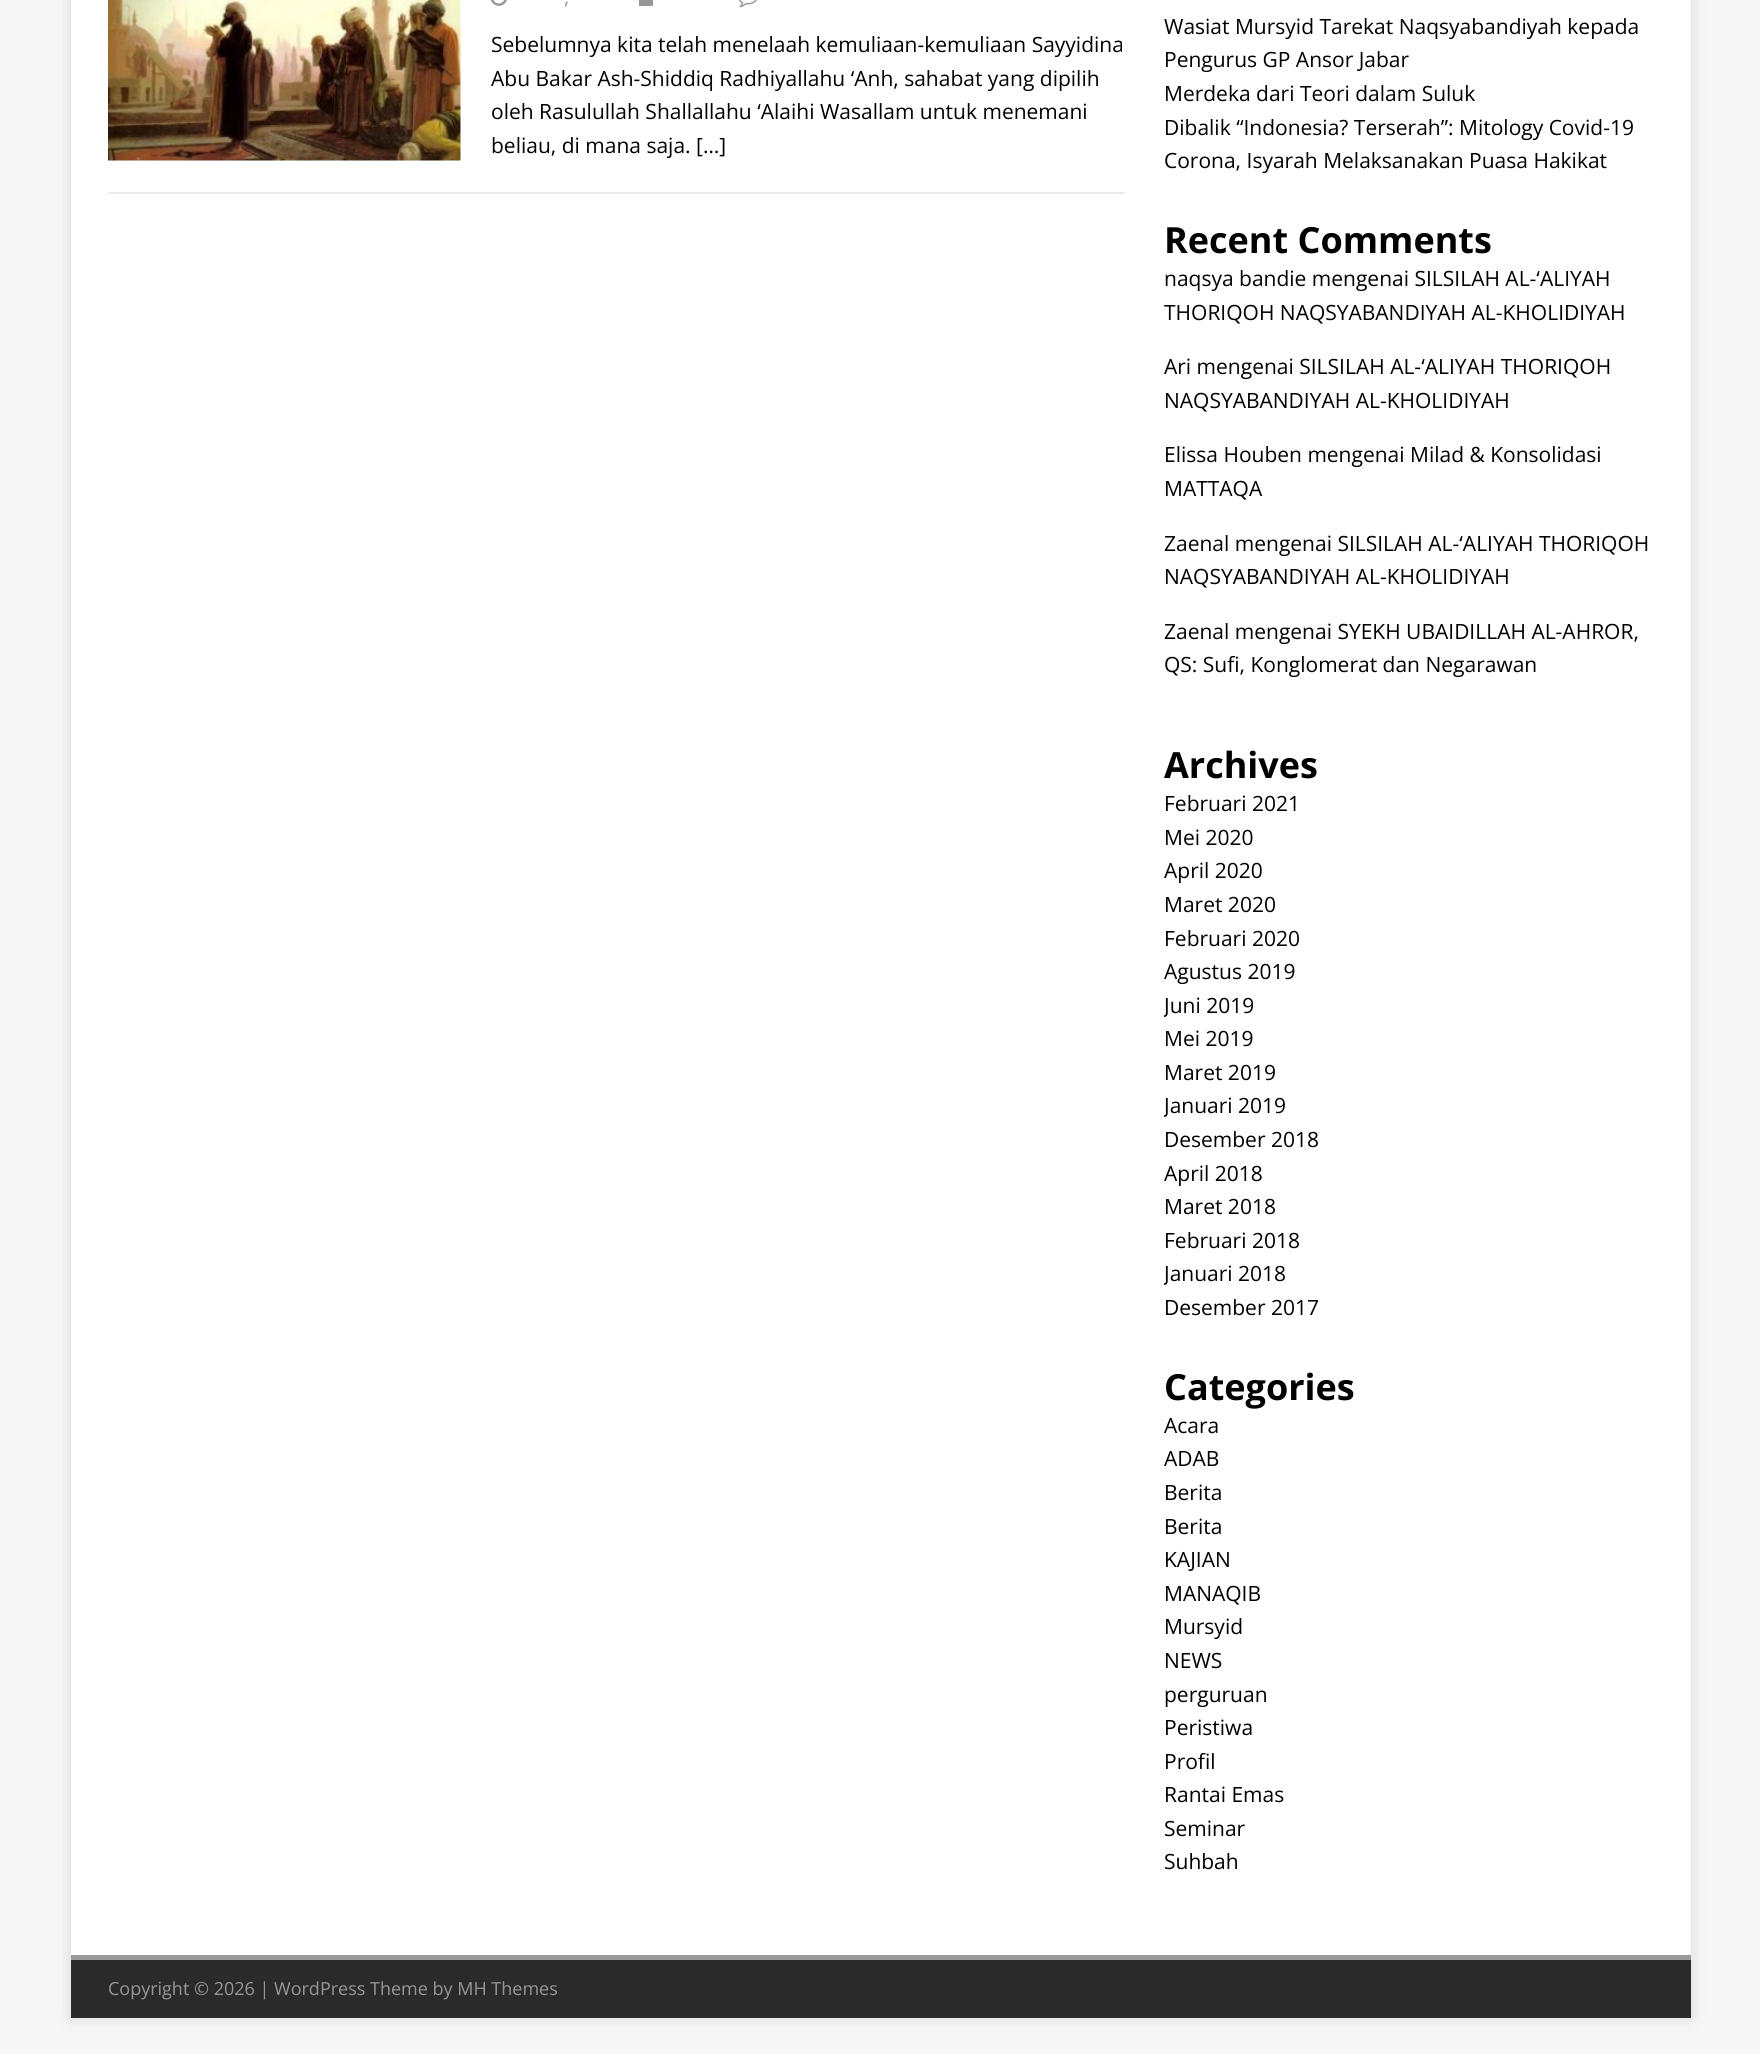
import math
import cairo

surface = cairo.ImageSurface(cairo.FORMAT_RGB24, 1760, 2054)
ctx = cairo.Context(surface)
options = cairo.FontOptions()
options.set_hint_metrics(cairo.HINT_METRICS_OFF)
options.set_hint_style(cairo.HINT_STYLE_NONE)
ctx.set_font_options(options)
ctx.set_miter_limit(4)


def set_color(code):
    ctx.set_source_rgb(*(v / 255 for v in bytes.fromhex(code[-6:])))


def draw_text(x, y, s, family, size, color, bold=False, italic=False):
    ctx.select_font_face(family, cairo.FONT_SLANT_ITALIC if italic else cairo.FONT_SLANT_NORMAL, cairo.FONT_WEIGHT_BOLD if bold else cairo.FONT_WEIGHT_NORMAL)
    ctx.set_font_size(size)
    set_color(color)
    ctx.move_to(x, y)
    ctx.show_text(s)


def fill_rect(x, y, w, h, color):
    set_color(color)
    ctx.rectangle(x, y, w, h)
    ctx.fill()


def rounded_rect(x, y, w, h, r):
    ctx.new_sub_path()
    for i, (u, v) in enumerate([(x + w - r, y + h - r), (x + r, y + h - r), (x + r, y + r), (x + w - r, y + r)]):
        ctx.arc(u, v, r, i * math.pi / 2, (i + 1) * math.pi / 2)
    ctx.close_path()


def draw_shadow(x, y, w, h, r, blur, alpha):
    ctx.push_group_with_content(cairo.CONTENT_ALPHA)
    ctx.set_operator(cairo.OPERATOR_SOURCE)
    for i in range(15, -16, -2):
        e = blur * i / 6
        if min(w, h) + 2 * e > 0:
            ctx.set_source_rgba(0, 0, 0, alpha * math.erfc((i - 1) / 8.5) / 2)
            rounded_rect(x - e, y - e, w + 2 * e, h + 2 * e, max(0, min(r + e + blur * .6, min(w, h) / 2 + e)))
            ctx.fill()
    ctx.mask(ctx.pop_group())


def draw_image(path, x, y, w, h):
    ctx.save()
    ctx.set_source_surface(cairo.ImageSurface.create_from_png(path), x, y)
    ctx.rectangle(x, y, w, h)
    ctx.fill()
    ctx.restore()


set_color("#f7f7f7")
ctx.paint()
set_color("#323232")
draw_shadow(71, -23, 1620, 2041, 0, 7.5, 0.17)
fill_rect(71, 0, 1620, 1955, "#ffffff")
fill_rect(108, 192, 1017, 2, "#ebebeb")
draw_image("assets/img1.png", 108, 0, 353, 161)
draw_image("assets/img2.png", 491, 0, 16, 6)
draw_text(564, 4, ",", "Open Sans", 20, "#979797")
fill_rect(639, 0, 14, 6, "#979797")
draw_image("assets/img3.png", 738, 0, 19, 8)
draw_text(491, 52, "Sebelumnya kita telah menelaah kemuliaan-kemuliaan Sayyidina", "Open Sans", 21, "#000000")
draw_text(491, 86, "Abu Bakar Ash-Shiddiq Radhiyallahu ‘Anh, sahabat yang dipilih", "Open Sans", 21, "#000000")
draw_text(491, 119, "oleh Rasulullah Shallallahu ‘Alaihi Wasallam untuk menemani", "Open Sans", 21, "#000000")
draw_text(491, 153, "beliau, di mana saja. […]", "Open Sans", 21, "#000000")
draw_text(1164, 34, "Wasiat Mursyid Tarekat Naqsyabandiyah kepada", "Open Sans", 21, "#000000")
draw_text(1164, 67, "Pengurus GP Ansor Jabar", "Open Sans", 21, "#000000")
draw_text(1164, 101, "Merdeka dari Teori dalam Suluk", "Open Sans", 21, "#000000")
draw_text(1164, 135, "Dibalik “Indonesia? Terserah”: Mitology Covid-19", "Open Sans", 21, "#000000")
draw_text(1164, 168, "Corona, Isyarah Melaksanakan Puasa Hakikat", "Open Sans", 21, "#000000")
draw_text(1164, 253, "Recent Comments", "Open Sans", 36, "#000000", bold=True)
draw_text(1164, 286, "naqsya bandie mengenai SILSILAH AL-‘ALIYAH", "Open Sans", 21, "#000000")
draw_text(1164, 320, "THORIQOH NAQSYABANDIYAH AL-KHOLIDIYAH", "Open Sans", 21, "#000000")
draw_text(1164, 374, "Ari mengenai SILSILAH AL-‘ALIYAH THORIQOH", "Open Sans", 21, "#000000")
draw_text(1164, 408, "NAQSYABANDIYAH AL-KHOLIDIYAH", "Open Sans", 21, "#000000")
draw_text(1164, 462, "Elissa Houben mengenai Milad & Konsolidasi", "Open Sans", 21, "#000000")
draw_text(1164, 496, "MATTAQA", "Open Sans", 21, "#000000")
draw_text(1164, 551, "Zaenal mengenai SILSILAH AL-‘ALIYAH THORIQOH", "Open Sans", 21, "#000000")
draw_text(1164, 584, "NAQSYABANDIYAH AL-KHOLIDIYAH", "Open Sans", 21, "#000000")
draw_text(1164, 639, "Zaenal mengenai SYEKH UBAIDILLAH AL-AHROR,", "Open Sans", 21, "#000000")
draw_text(1164, 672, "QS: Sufi, Konglomerat dan Negarawan", "Open Sans", 21, "#000000")
draw_text(1164, 778, "Archives", "Open Sans", 36, "#000000", bold=True)
draw_text(1164, 811, "Februari 2021", "Open Sans", 21, "#000000")
draw_text(1164, 845, "Mei 2020", "Open Sans", 21, "#000000")
draw_text(1164, 878, "April 2020", "Open Sans", 21, "#000000")
draw_text(1164, 912, "Maret 2020", "Open Sans", 21, "#000000")
draw_text(1164, 946, "Februari 2020", "Open Sans", 21, "#000000")
draw_text(1164, 979, "Agustus 2019", "Open Sans", 21, "#000000")
ctx.save()
ctx.rectangle(1164, 741, 489, 584)
ctx.clip()
draw_text(1164, 1013, "Juni 2019", "Open Sans", 21, "#000000")
ctx.restore()
draw_text(1164, 1046, "Mei 2019", "Open Sans", 21, "#000000")
draw_text(1164, 1080, "Maret 2019", "Open Sans", 21, "#000000")
ctx.save()
ctx.rectangle(1164, 741, 489, 584)
ctx.clip()
draw_text(1164, 1113, "Januari 2019", "Open Sans", 21, "#000000")
ctx.restore()
draw_text(1164, 1147, "Desember 2018", "Open Sans", 21, "#000000")
draw_text(1164, 1181, "April 2018", "Open Sans", 21, "#000000")
draw_text(1164, 1214, "Maret 2018", "Open Sans", 21, "#000000")
draw_text(1164, 1248, "Februari 2018", "Open Sans", 21, "#000000")
ctx.save()
ctx.rectangle(1164, 741, 489, 584)
ctx.clip()
draw_text(1164, 1281, "Januari 2018", "Open Sans", 21, "#000000")
ctx.restore()
draw_text(1164, 1315, "Desember 2017", "Open Sans", 21, "#000000")
draw_text(1164, 1400, "Categories", "Open Sans", 36, "#000000", bold=True)
draw_text(1164, 1433, "Acara", "Open Sans", 21, "#000000")
draw_text(1164, 1466, "ADAB", "Open Sans", 21, "#000000")
draw_text(1164, 1500, "Berita", "Open Sans", 21, "#000000")
draw_text(1164, 1534, "Berita", "Open Sans", 21, "#000000")
draw_text(1164, 1567, "KAJIAN", "Open Sans", 21, "#000000")
draw_text(1164, 1601, "MANAQIB", "Open Sans", 21, "#000000")
draw_text(1164, 1634, "Mursyid", "Open Sans", 21, "#000000")
draw_text(1164, 1668, "NEWS", "Open Sans", 21, "#000000")
draw_text(1164, 1702, "perguruan", "Open Sans", 21, "#000000")
draw_text(1164, 1735, "Peristiwa", "Open Sans", 21, "#000000")
draw_text(1164, 1769, "Profil", "Open Sans", 21, "#000000")
draw_text(1164, 1802, "Rantai Emas", "Open Sans", 21, "#000000")
draw_text(1164, 1836, "Seminar", "Open Sans", 21, "#000000")
draw_text(1164, 1869, "Suhbah", "Open Sans", 21, "#000000")
fill_rect(71, 1960, 1620, 58, "#2a2a2a")
fill_rect(71, 1955, 1620, 5, "#999999")
draw_text(108, 1995, "Copyright © 2026 | WordPress Theme by MH Themes", "Open Sans", 18, "#979797")
surface.write_to_png("output.png")
